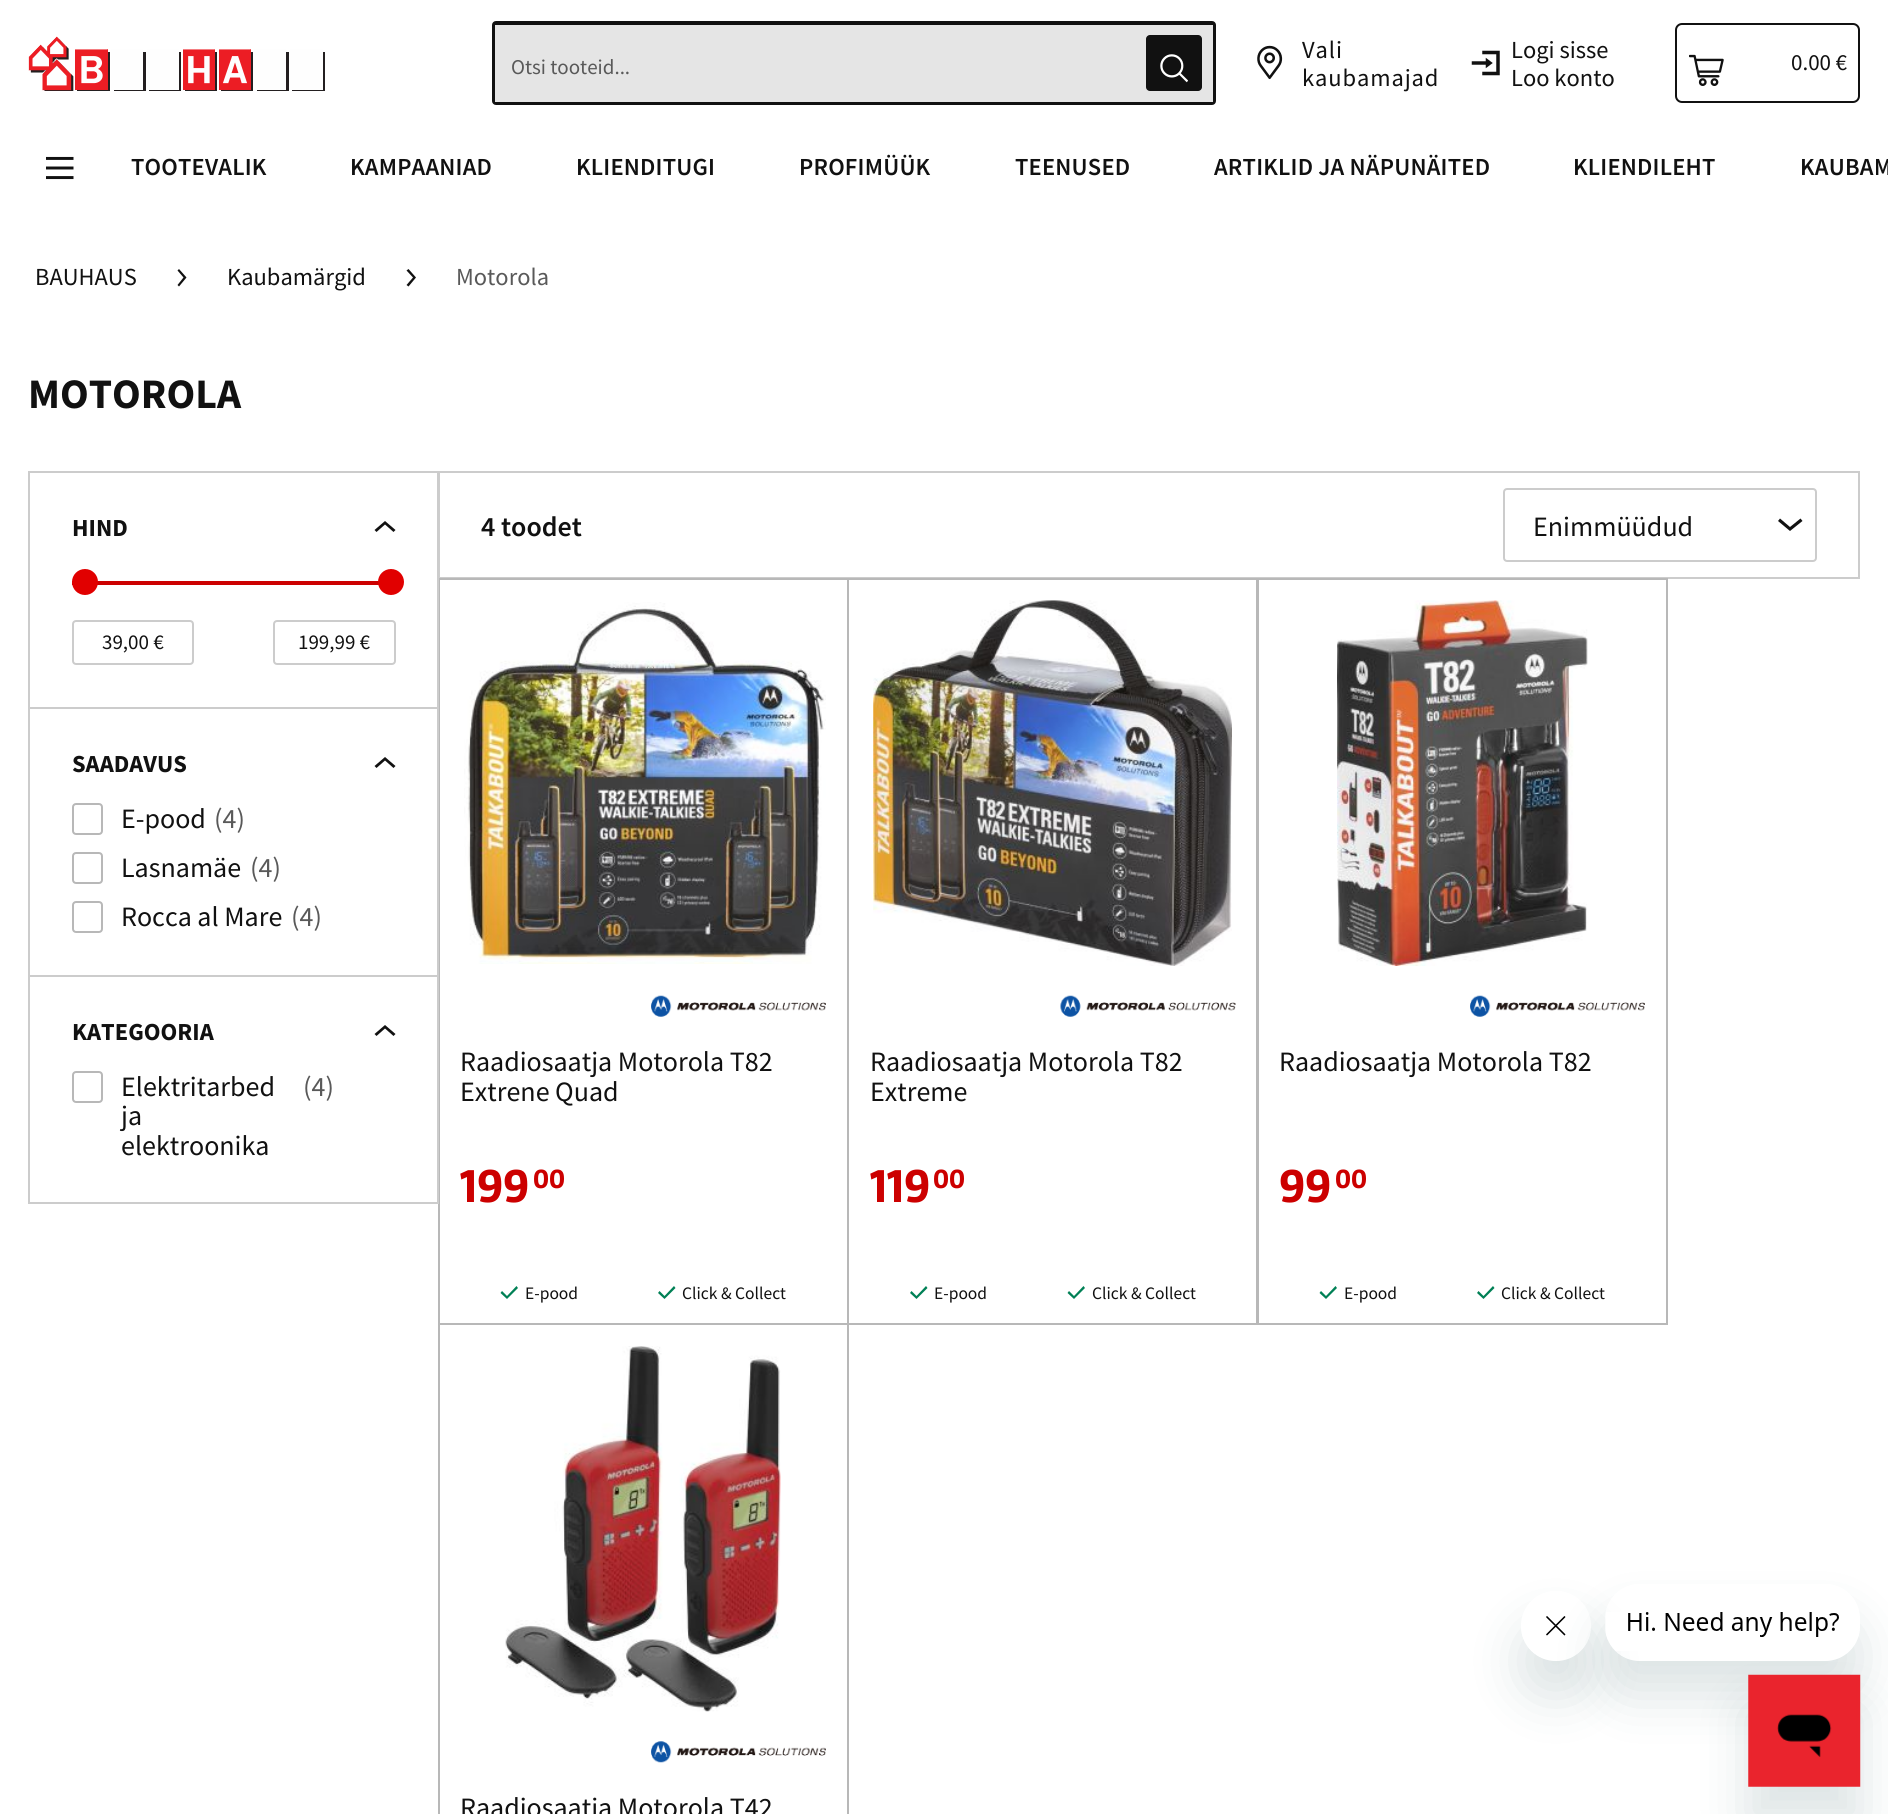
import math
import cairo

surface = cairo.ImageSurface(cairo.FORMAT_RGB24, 1888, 1814)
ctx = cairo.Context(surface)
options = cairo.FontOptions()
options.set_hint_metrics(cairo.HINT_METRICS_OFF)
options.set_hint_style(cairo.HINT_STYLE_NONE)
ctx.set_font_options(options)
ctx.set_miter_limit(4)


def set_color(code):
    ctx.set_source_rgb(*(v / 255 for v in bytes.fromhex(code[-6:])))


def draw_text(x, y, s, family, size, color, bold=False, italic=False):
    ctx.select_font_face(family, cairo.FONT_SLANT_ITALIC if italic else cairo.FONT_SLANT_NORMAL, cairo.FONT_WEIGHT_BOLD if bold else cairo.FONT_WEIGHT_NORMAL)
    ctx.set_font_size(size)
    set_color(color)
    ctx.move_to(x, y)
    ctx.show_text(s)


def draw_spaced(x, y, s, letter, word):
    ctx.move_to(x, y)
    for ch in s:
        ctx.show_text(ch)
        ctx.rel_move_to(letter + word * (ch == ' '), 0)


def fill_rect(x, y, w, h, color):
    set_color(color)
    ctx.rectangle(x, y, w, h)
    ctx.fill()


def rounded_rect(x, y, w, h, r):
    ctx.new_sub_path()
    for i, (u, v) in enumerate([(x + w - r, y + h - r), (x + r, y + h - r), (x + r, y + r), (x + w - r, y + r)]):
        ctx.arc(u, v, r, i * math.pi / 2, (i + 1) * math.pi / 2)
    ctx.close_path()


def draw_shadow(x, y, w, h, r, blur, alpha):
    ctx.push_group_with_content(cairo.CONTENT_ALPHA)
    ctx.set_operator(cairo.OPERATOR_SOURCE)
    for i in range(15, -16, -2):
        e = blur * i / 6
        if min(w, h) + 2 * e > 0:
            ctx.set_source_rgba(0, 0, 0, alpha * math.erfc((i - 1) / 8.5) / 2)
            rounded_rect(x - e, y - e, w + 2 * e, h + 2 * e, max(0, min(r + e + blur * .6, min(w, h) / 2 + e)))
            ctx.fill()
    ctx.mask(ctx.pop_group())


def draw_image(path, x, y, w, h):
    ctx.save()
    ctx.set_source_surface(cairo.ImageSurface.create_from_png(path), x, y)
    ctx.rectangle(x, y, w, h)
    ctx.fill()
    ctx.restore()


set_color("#ffffff")
ctx.paint()
draw_image("assets/img1.png", 28, 36, 297, 55)
rounded_rect(494, 23, 720, 80, 2)
set_color("#111111")
ctx.set_line_width(4)
ctx.stroke()
fill_rect(495, 25, 718, 77, "#e5e5e5")
draw_text(511, 74, "Otsi tooteid...", "Source Sans Pro", 21, "#595959")
set_color("#111111")
rounded_rect(1146, 35, 56, 56, 4)
ctx.fill()
draw_image("assets/img2.png", 1160, 54, 28, 29)
draw_image("assets/img3.png", 1257, 45, 26, 35)
ctx.set_font_size(24.5)
draw_spaced(1302, 58, "Vali", 0.9, 0)
draw_spaced(1302, 86, "kaubamajad", 0.9, 0)
draw_image("assets/img4.png", 1471, 50, 29, 26)
draw_text(1511, 58, "Logi sisse", "Source Sans Pro", 24.5, "#111111")
draw_text(1511, 86, "Loo konto", "Source Sans Pro", 24.5, "#111111")
rounded_rect(1676, 24, 183, 78, 6)
ctx.set_line_width(2)
ctx.stroke()
draw_image("assets/img5.png", 1689, 54, 35, 32)
draw_text(1791, 70, "0.00 €", "Source Sans Pro", 23, "#111111")
draw_image("assets/img6.png", 46, 156, 28, 24)
ctx.select_font_face("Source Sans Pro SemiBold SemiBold")
ctx.set_font_size(24.5)
draw_spaced(131, 175, "TOOTEVALIK", 0.2, 0)
draw_spaced(350, 175, "KAMPAANIAD", 0.2, 0)
draw_spaced(576, 175, "KLIENDITUGI", 0.2, 0)
draw_spaced(799, 175, "PROFIMÜÜK", 0.2, 0)
draw_spaced(1015, 175, "TEENUSED", 0.2, 0)
draw_spaced(1214, 175, "ARTIKLID JA NÄPUNÄITED", 0.2, 0)
draw_spaced(1573, 175, "KLIENDILEHT", 0.2, 0)
draw_spaced(1800, 175, "KAUBAM", 0.2, 0)
draw_text(35, 285, "BAUHAUS", "Source Sans Pro", 24.5, "#111111")
ctx.new_path()
ctx.move_to(179, 286.5)
ctx.line_to(177.5, 285)
ctx.line_to(183.5, 277.5)
ctx.line_to(177.5, 270.5)
ctx.line_to(179, 269)
ctx.line_to(186.5, 277.5)
ctx.close_path()
ctx.fill()
draw_text(227, 285, "Kaubamärgid", "Source Sans Pro", 24.5, "#111111")
ctx.new_path()
ctx.move_to(408.5, 286.5)
ctx.line_to(406.5, 285)
ctx.line_to(413, 277.5)
ctx.line_to(406.5, 270.5)
ctx.line_to(408.5, 269)
ctx.line_to(416, 277.5)
ctx.close_path()
ctx.fill()
draw_text(456, 285, "Motorola", "Source Sans Pro", 24.5, "#595959")
draw_text(28, 408, "MOTOROLA", "Source Sans Pro", 42, "#111111", bold=True)
ctx.rectangle(439, 472, 1420, 106)
set_color("#cccccc")
ctx.stroke()
ctx.rectangle(439, 579, 409, 745)
set_color("#b8b8b8")
ctx.stroke()
ctx.rectangle(29, 472, 409, 731)
set_color("#cccccc")
ctx.stroke()
draw_text(72, 536, "HIND", "Source Sans Pro", 24.5, "#111111", bold=True)
ctx.new_path()
ctx.move_to(374.5, 530)
ctx.line_to(376.5, 532)
ctx.line_to(385, 524.5)
ctx.line_to(393.5, 532)
ctx.line_to(395.5, 530)
ctx.line_to(385, 521)
ctx.close_path()
ctx.fill()
fill_rect(72, 581, 308, 4, "#cc0000")
set_color("#e10000")
ctx.arc(85, 582, 13, 0, 2 * math.pi)
ctx.fill()
ctx.arc(391, 582, 13, 0, 2 * math.pi)
ctx.fill()
rounded_rect(73, 621, 120, 43, 3)
set_color("#cccccc")
ctx.stroke()
draw_text(102, 649, "39,00 €", "Source Sans Pro", 21, "#111111")
rounded_rect(274, 621, 121, 43, 3)
set_color("#cccccc")
ctx.stroke()
draw_text(298, 649, "199,99 €", "Source Sans Pro", 21, "#111111")
fill_rect(30, 707, 408, 2, "#cccccc")
draw_text(72, 772, "SAADAVUS", "Source Sans Pro", 24.5, "#111111", bold=True)
ctx.new_path()
ctx.move_to(374.5, 766)
ctx.line_to(376.5, 768)
ctx.line_to(385, 760.5)
ctx.line_to(393.5, 768)
ctx.line_to(395.5, 766)
ctx.line_to(385, 757)
ctx.close_path()
ctx.fill()
rounded_rect(73, 804, 29, 30, 3)
set_color("#b8b8b8")
ctx.stroke()
draw_text(121, 828, "E-pood", "Source Sans Pro", 28, "#111111")
draw_text(214, 828, "(4)", "Source Sans Pro", 28, "#595959")
rounded_rect(73, 853, 29, 30, 3)
set_color("#b8b8b8")
ctx.stroke()
draw_text(121, 877, "Lasnamäe", "Source Sans Pro", 28, "#111111")
draw_text(250, 877, "(4)", "Source Sans Pro", 28, "#595959")
rounded_rect(73, 902, 29, 30, 3)
set_color("#b8b8b8")
ctx.stroke()
draw_text(121, 926, "Rocca al Mare", "Source Sans Pro", 28, "#111111")
draw_text(291, 926, "(4)", "Source Sans Pro", 28, "#595959")
fill_rect(30, 975, 408, 2, "#cccccc")
draw_text(72, 1040, "KATEGOORIA", "Source Sans Pro", 24.5, "#111111", bold=True)
ctx.new_path()
ctx.move_to(374.5, 1034)
ctx.line_to(376.5, 1036)
ctx.line_to(385, 1028.5)
ctx.line_to(393.5, 1036)
ctx.line_to(395.5, 1034)
ctx.line_to(385, 1025)
ctx.close_path()
ctx.fill()
rounded_rect(73, 1072, 29, 30, 3)
set_color("#b8b8b8")
ctx.stroke()
draw_text(121, 1096, "Elektritarbed", "Source Sans Pro", 28, "#111111")
draw_text(121, 1125, "ja", "Source Sans Pro", 28, "#111111")
draw_text(121, 1155, "elektroonika", "Source Sans Pro", 28, "#111111")
draw_text(303, 1096, "(4)", "Source Sans Pro", 28, "#595959")
draw_text(481, 536, "4 toodet", "Source Sans Pro SemiBold SemiBold", 28, "#111111")
rounded_rect(1504, 489, 312, 72, 3)
set_color("#cccccc")
ctx.stroke()
draw_text(1533, 536, "Enimmüüdud", "Source Sans Pro", 28, "#111111")
ctx.new_path()
ctx.move_to(1778, 521)
ctx.line_to(1780, 518.5)
ctx.line_to(1790, 527)
ctx.line_to(1800.5, 518.5)
ctx.line_to(1802.5, 521)
ctx.line_to(1790, 531)
ctx.close_path()
ctx.fill()
draw_image("assets/img7.png", 464, 602, 362, 362)
draw_image("assets/img8.png", 651, 995, 175, 22)
draw_text(460, 1071, "Raadiosaatja Motorola T82", "Source Sans Pro", 28, "#111111")
draw_text(460, 1101, "Extrene Quad", "Source Sans Pro", 28, "#111111")
draw_text(460, 1202, "199", "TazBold", 49, "#cc0000", bold=True)
draw_text(533, 1188, "00", "TazBold", 28, "#cc0000", bold=True)
set_color("#008055")
ctx.new_path()
ctx.move_to(516.5, 1286)
ctx.line_to(507, 1296)
ctx.line_to(502, 1291)
ctx.line_to(500.5, 1293)
ctx.line_to(507, 1299)
ctx.line_to(518, 1288)
ctx.close_path()
ctx.fill()
draw_text(525, 1299, "E-pood", "Source Sans Pro", 17.5, "#111111")
set_color("#008055")
ctx.new_path()
ctx.move_to(674, 1286)
ctx.line_to(664.5, 1296)
ctx.line_to(659.5, 1291)
ctx.line_to(658, 1293)
ctx.line_to(664.5, 1299)
ctx.line_to(675.5, 1288)
ctx.close_path()
ctx.fill()
draw_text(682, 1299, "Click & Collect", "Source Sans Pro", 17.5, "#111111")
ctx.rectangle(848, 579, 409, 745)
set_color("#b8b8b8")
ctx.stroke()
draw_image("assets/img9.png", 873, 600, 359, 366)
draw_image("assets/img10.png", 1060, 995, 176, 22)
draw_text(870, 1071, "Raadiosaatja Motorola T82", "Source Sans Pro", 28, "#111111")
draw_text(870, 1101, "Extreme", "Source Sans Pro", 28, "#111111")
draw_text(870, 1202, "119", "TazBold", 49, "#cc0000", bold=True)
draw_text(933, 1188, "00", "TazBold", 28, "#cc0000", bold=True)
set_color("#008055")
ctx.new_path()
ctx.move_to(926, 1286)
ctx.line_to(916.5, 1296)
ctx.line_to(911.5, 1291)
ctx.line_to(910, 1293)
ctx.line_to(916.5, 1299)
ctx.line_to(927.5, 1288)
ctx.close_path()
ctx.fill()
draw_text(934, 1299, "E-pood", "Source Sans Pro", 17.5, "#111111")
set_color("#008055")
ctx.new_path()
ctx.move_to(1083.5, 1286)
ctx.line_to(1074, 1296)
ctx.line_to(1069, 1291)
ctx.line_to(1067.5, 1293)
ctx.line_to(1074, 1299)
ctx.line_to(1085, 1288)
ctx.close_path()
ctx.fill()
draw_text(1092, 1299, "Click & Collect", "Source Sans Pro", 17.5, "#111111")
ctx.rectangle(1258, 579, 409, 745)
set_color("#b8b8b8")
ctx.stroke()
draw_image("assets/img11.png", 1337, 600, 251, 366)
draw_image("assets/img8.png", 1470, 995, 175, 22)
draw_text(1279, 1071, "Raadiosaatja Motorola T82", "Source Sans Pro", 28, "#111111")
draw_text(1279, 1202, "99", "TazBold", 49, "#cc0000", bold=True)
draw_text(1335, 1188, "00", "TazBold", 28, "#cc0000", bold=True)
set_color("#008055")
ctx.new_path()
ctx.move_to(1335.5, 1286)
ctx.line_to(1326, 1296)
ctx.line_to(1321, 1291)
ctx.line_to(1319.5, 1293)
ctx.line_to(1326, 1299)
ctx.line_to(1337, 1288)
ctx.close_path()
ctx.fill()
draw_text(1344, 1299, "E-pood", "Source Sans Pro", 17.5, "#111111")
set_color("#008055")
ctx.new_path()
ctx.move_to(1493, 1286)
ctx.line_to(1483.5, 1296)
ctx.line_to(1478.5, 1291)
ctx.line_to(1477, 1293)
ctx.line_to(1483.5, 1299)
ctx.line_to(1494.5, 1288)
ctx.close_path()
ctx.fill()
draw_text(1501, 1299, "Click & Collect", "Source Sans Pro", 17.5, "#111111")
ctx.rectangle(439, 1324, 409, 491)
set_color("#b8b8b8")
ctx.stroke()
draw_image("assets/img12.png", 505, 1346, 276, 366)
draw_image("assets/img13.png", 651, 1741, 175, 22)
draw_text(460, 1817, "Raadiosaatja Motorola T42", "Source Sans Pro", 28, "#111111")
ctx.save()
ctx.set_fill_rule(cairo.FILL_RULE_EVEN_ODD)
ctx.new_path()
ctx.move_to(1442, 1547)
ctx.line_to(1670, 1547)
ctx.line_to(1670, 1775)
ctx.line_to(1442, 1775)
ctx.close_path()
ctx.move_to(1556, 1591)
ctx.curve_to(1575.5, 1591, 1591, 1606.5, 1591, 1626)
ctx.curve_to(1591, 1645.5, 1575.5, 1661, 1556, 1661)
ctx.curve_to(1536.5, 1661, 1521, 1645.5, 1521, 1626)
ctx.curve_to(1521, 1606.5, 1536.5, 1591, 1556, 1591)
ctx.close_path()
ctx.clip()
set_color("#17494d")
draw_shadow(1521, 1626, 70, 70, 35, 26, 0.15)
ctx.restore()
draw_image("assets/img15.png", 1546, 1616, 20, 20)
ctx.save()
ctx.set_fill_rule(cairo.FILL_RULE_EVEN_ODD)
ctx.new_path()
ctx.move_to(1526, 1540)
ctx.line_to(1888, 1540)
ctx.line_to(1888, 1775)
ctx.line_to(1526, 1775)
ctx.close_path()
ctx.move_to(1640, 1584)
ctx.line_to(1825, 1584)
ctx.curve_to(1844.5, 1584, 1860, 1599.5, 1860, 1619)
ctx.line_to(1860, 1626)
ctx.curve_to(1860, 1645.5, 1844.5, 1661, 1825, 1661)
ctx.line_to(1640, 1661)
ctx.curve_to(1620.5, 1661, 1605, 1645.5, 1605, 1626)
ctx.line_to(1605, 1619)
ctx.curve_to(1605, 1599.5, 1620.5, 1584, 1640, 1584)
ctx.close_path()
ctx.clip()
set_color("#17494d")
draw_shadow(1605, 1619, 255, 77, 35, 26, 0.15)
ctx.restore()
draw_image("assets/img14.png", 1606, 1612, 233, 39)
set_color("#17494d")
draw_shadow(1748, 1710, 112, 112, 0, 26, 0.15)
draw_image("assets/img16.png", 1748, 1674, 113, 113)
surface.write_to_png("output.png")
